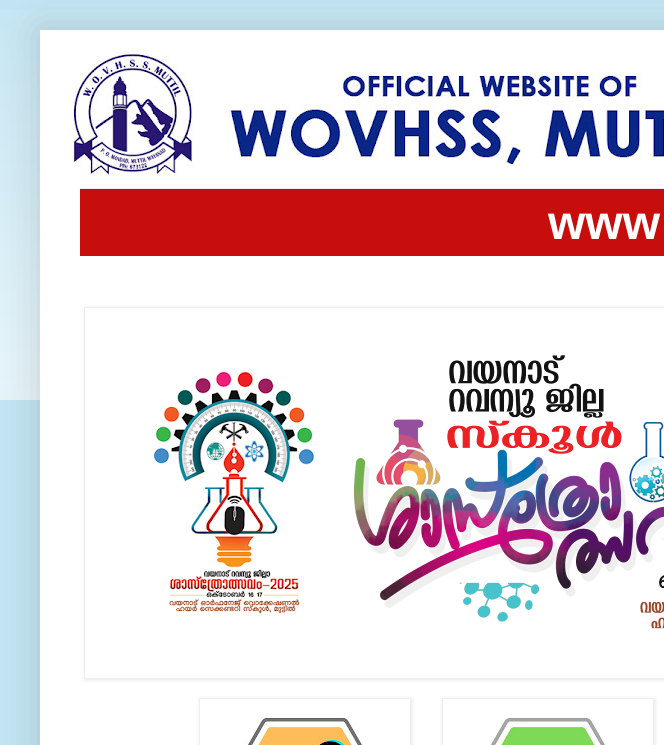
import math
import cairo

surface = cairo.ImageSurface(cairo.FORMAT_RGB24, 664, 745)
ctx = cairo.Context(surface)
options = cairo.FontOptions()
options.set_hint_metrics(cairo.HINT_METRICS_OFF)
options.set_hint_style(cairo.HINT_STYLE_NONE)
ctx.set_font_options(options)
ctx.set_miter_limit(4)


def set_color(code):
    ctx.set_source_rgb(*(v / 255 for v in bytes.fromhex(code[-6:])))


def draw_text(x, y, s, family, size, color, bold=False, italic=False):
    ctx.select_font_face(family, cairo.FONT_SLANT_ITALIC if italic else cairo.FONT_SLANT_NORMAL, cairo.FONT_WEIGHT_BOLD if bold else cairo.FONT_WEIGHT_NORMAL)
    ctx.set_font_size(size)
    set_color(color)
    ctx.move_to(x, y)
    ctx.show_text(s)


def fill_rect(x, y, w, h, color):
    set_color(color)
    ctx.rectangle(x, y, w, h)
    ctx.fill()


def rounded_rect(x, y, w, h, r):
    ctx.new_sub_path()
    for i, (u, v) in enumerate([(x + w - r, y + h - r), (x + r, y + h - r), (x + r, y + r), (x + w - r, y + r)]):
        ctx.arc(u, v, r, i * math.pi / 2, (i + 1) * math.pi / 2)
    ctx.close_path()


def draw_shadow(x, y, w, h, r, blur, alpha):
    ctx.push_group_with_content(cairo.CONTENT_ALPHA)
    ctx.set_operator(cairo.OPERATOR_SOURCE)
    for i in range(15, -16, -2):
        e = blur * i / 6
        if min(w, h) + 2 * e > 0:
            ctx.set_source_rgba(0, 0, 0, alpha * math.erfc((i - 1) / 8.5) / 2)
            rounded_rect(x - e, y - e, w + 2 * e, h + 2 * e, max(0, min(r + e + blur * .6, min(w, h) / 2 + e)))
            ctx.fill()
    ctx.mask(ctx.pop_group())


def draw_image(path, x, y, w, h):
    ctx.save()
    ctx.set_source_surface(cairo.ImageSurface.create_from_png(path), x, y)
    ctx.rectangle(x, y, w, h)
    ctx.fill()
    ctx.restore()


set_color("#c2e4f2")
ctx.paint()
draw_image("assets/img1.png", 0, 10, 664, 390)
set_color("#000000")
draw_shadow(40, 30, 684, 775, 0, 20, 0.15)
fill_rect(40, 30, 624, 715, "#ffffff")
draw_image("assets/img2.png", 73, 48, 591, 128)
fill_rect(80, 188, 584, 1, "#eeeeee")
fill_rect(80, 189, 584, 67, "#c80d0d")
draw_text(548, 239, "www", "Liberation Sans", 48, "#ffffff", bold=True)
ctx.save()
ctx.set_fill_rule(cairo.FILL_RULE_EVEN_ODD)
ctx.new_path()
ctx.move_to(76, 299)
ctx.line_to(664, 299)
ctx.line_to(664, 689)
ctx.line_to(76, 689)
ctx.close_path()
ctx.move_to(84, 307)
ctx.line_to(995, 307)
ctx.line_to(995, 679)
ctx.line_to(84, 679)
ctx.close_path()
ctx.clip()
set_color("#000000")
draw_shadow(85, 308, 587, 372, 0, 2.5, 0.1)
ctx.restore()
ctx.rectangle(84.5, 307.5, 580, 371)
set_color("#eeeeee")
ctx.set_line_width(1)
ctx.stroke()
draw_image("assets/img3.png", 153, 355, 511, 274)
ctx.save()
ctx.set_fill_rule(cairo.FILL_RULE_EVEN_ODD)
ctx.new_path()
ctx.move_to(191, 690)
ctx.line_to(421, 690)
ctx.line_to(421, 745)
ctx.line_to(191, 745)
ctx.close_path()
ctx.move_to(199, 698)
ctx.line_to(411, 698)
ctx.line_to(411, 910)
ctx.line_to(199, 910)
ctx.close_path()
ctx.clip()
set_color("#000000")
draw_shadow(200, 699, 212, 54, 0, 2.5, 0.1)
ctx.restore()
ctx.save()
ctx.set_fill_rule(cairo.FILL_RULE_EVEN_ODD)
ctx.new_path()
ctx.move_to(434, 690)
ctx.line_to(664, 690)
ctx.line_to(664, 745)
ctx.line_to(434, 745)
ctx.close_path()
ctx.move_to(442, 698)
ctx.line_to(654, 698)
ctx.line_to(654, 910)
ctx.line_to(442, 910)
ctx.close_path()
ctx.clip()
set_color("#000000")
draw_shadow(443, 699, 212, 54, 0, 2.5, 0.1)
ctx.restore()
ctx.rectangle(199.5, 698.5, 211, 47)
ctx.stroke()
ctx.rectangle(442.5, 698.5, 211, 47)
ctx.stroke()
draw_image("assets/img4.png", 245, 714, 118, 31)
draw_image("assets/img5.png", 489, 712, 125, 33)
surface.write_to_png("output.png")
